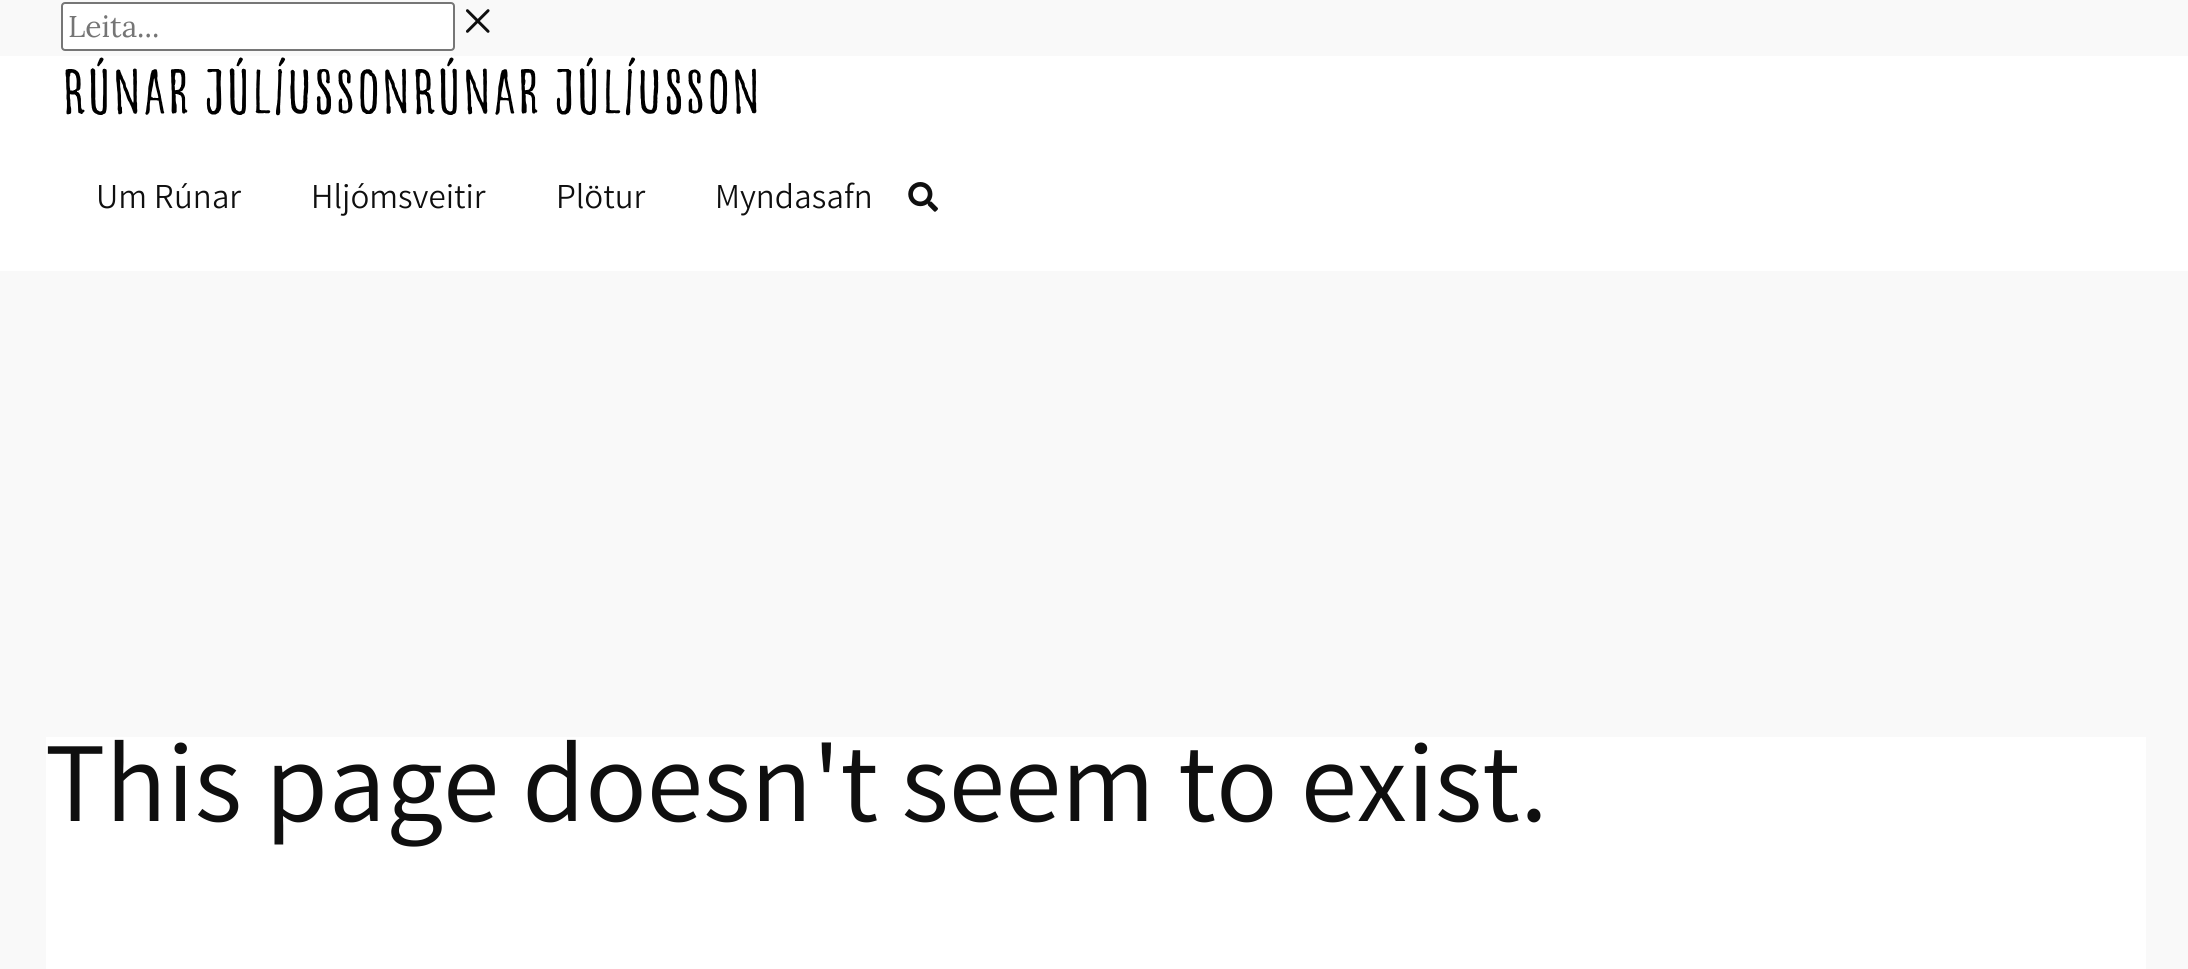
import math
import cairo

surface = cairo.ImageSurface(cairo.FORMAT_RGB24, 2188, 969)
ctx = cairo.Context(surface)
options = cairo.FontOptions()
options.set_hint_metrics(cairo.HINT_METRICS_OFF)
options.set_hint_style(cairo.HINT_STYLE_NONE)
ctx.set_font_options(options)
ctx.set_miter_limit(4)


def set_color(code):
    ctx.set_source_rgb(*(v / 255 for v in bytes.fromhex(code[-6:])))


def draw_text(x, y, s, family, size, color, bold=False, italic=False):
    ctx.select_font_face(family, cairo.FONT_SLANT_ITALIC if italic else cairo.FONT_SLANT_NORMAL, cairo.FONT_WEIGHT_BOLD if bold else cairo.FONT_WEIGHT_NORMAL)
    ctx.set_font_size(size)
    set_color(color)
    ctx.move_to(x, y)
    ctx.show_text(s)


def fill_rect(x, y, w, h, color):
    set_color(color)
    ctx.rectangle(x, y, w, h)
    ctx.fill()


def rounded_rect(x, y, w, h, r):
    ctx.new_sub_path()
    for i, (u, v) in enumerate([(x + w - r, y + h - r), (x + r, y + h - r), (x + r, y + r), (x + w - r, y + r)]):
        ctx.arc(u, v, r, i * math.pi / 2, (i + 1) * math.pi / 2)
    ctx.close_path()


def draw_image(path, x, y, w, h):
    ctx.save()
    ctx.set_source_surface(cairo.ImageSurface.create_from_png(path), x, y)
    ctx.rectangle(x, y, w, h)
    ctx.fill()
    ctx.restore()


set_color("#f9f9f9")
ctx.paint()
set_color("#ffffff")
rounded_rect(62, 3, 392, 47, 3)
ctx.fill_preserve()
set_color("#767676")
ctx.stroke()
draw_text(68, 37, "Leita...", "Lora", 30, "#757575")
draw_image("assets/img1.png", 466, 9, 24, 24)
fill_rect(0, 56, 2188, 215, "#ffffff")
draw_image("assets/img2.png", 65, 57, 342, 59)
draw_image("assets/img3.png", 415, 57, 342, 59)
draw_text(96, 208, "Um Rúnar", "Varta Light", 35, "#0f0f0f")
draw_text(311, 208, "Hljómsveitir", "Varta Light", 35, "#0f0f0f")
draw_text(556, 208, "Plötur", "Varta Light", 35, "#0f0f0f")
draw_text(715, 208, "Myndasafn", "Varta Light", 35, "#0f0f0f")
draw_image("assets/img4.png", 908, 182, 30, 30)
fill_rect(46, 737, 2100, 232, "#ffffff")
draw_text(45, 821, "This page doesn't seem to exist.", "Varta", 113.75, "#0f0f0f")
surface.write_to_png("output.png")
